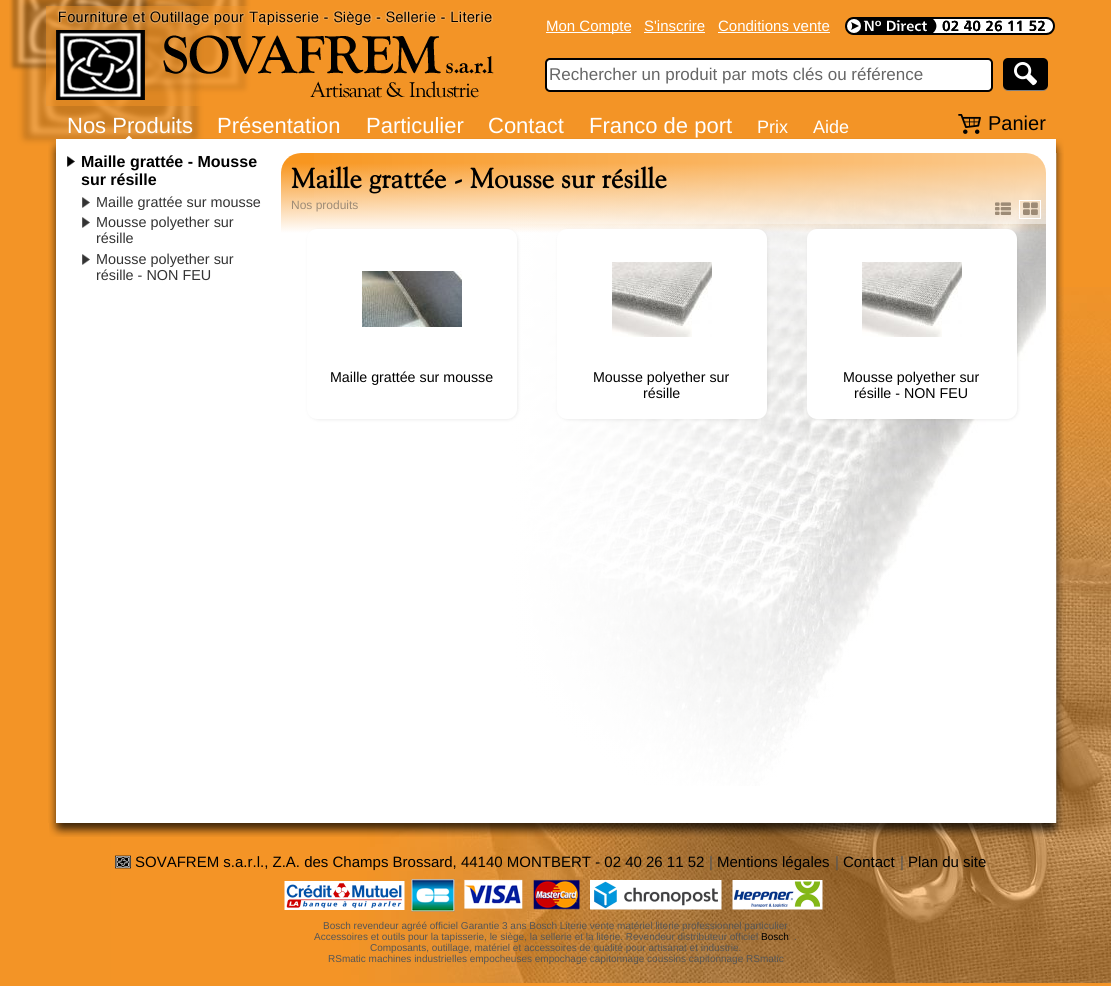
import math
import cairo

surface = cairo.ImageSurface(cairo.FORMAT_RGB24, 1111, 986)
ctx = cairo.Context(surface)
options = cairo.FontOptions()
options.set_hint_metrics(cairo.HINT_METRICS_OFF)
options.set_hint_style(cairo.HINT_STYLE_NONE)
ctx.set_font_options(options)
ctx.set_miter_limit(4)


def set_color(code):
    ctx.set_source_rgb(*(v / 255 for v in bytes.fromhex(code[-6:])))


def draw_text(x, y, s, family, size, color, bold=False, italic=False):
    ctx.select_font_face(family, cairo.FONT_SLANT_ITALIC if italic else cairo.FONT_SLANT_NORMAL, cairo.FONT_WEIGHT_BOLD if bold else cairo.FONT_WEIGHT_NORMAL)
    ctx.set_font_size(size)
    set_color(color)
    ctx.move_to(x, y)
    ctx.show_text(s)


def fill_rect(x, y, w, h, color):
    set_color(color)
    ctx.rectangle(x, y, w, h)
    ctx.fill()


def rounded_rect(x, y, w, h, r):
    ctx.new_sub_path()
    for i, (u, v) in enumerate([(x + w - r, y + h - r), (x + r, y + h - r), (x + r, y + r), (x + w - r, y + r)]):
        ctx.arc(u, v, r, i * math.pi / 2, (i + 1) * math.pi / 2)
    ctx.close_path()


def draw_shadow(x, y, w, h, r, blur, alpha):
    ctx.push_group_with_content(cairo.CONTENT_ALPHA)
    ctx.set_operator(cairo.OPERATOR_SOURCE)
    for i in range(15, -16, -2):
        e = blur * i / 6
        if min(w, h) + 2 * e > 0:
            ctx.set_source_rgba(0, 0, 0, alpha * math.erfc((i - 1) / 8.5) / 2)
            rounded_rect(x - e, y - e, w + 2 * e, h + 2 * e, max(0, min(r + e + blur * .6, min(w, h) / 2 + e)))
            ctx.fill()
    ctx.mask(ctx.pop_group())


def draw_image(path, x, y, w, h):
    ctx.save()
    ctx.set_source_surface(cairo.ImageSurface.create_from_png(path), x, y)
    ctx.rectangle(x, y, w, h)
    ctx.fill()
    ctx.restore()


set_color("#f39426")
ctx.paint()
draw_image("assets/img1.png", 9, 0, 1102, 983)
draw_image("assets/img2.png", 56, 10, 438, 90)
fill_rect(546, 32, 85, 1, "#ffffff")
draw_text(546, 31, "Mon Compte", "Liberation Sans", 15, "#ffffff")
draw_text(644, 31, "S'inscrire", "Liberation Sans", 15, "#ffffff")
fill_rect(644, 32, 61, 1, "#ffffff")
draw_text(718, 31, "Conditions vente", "Liberation Sans", 15, "#ffffff")
fill_rect(718, 32, 112, 1, "#ffffff")
draw_image("assets/img3.png", 845, 17, 210, 18)
rounded_rect(546, 59, 446, 32, 4)
ctx.fill_preserve()
set_color("#000000")
ctx.stroke()
draw_text(549, 80, "Rechercher un produit par mots clés ou référence", "Liberation Sans", 17, "#666666")
set_color("#7e7e7e")
ctx.new_path()
ctx.move_to(1003, 85)
ctx.curve_to(1003, 92, 1008, 91, 1014, 91)
ctx.line_to(1037, 91)
ctx.curve_to(1043, 91, 1048, 92, 1048, 85)
ctx.curve_to(1048, 88, 1046, 90, 1043, 90)
ctx.line_to(1008, 90)
ctx.curve_to(1005, 90, 1003, 88, 1003, 85)
ctx.close_path()
ctx.fill()
set_color("#000000")
rounded_rect(1003, 58, 45, 32, 5)
ctx.fill()
draw_image("assets/img4.png", 1014, 62, 23, 24)
draw_image("assets/img5.png", 125, 135, 8, 4)
draw_text(67, 133, "Nos Produits", "Liberation Sans", 22, "#ffffff")
draw_text(217, 133, "Présentation", "Liberation Sans", 22, "#ffffff")
draw_text(366, 133, "Particulier", "Liberation Sans", 22, "#ffffff")
draw_text(488, 133, "Contact", "Liberation Sans", 22, "#ffffff")
draw_text(589, 133, "Franco de port", "Liberation Sans", 22, "#ffffff")
draw_text(757, 133, "Prix", "Liberation Sans", 18, "#ffffff")
draw_text(813, 133, "Aide", "Liberation Sans", 18, "#ffffff")
draw_image("assets/img6.png", 958, 114, 23, 20)
draw_text(988, 130, "Panier", "Liberation Sans", 20, "#000000")
draw_image("assets/img7.png", 48, 153, 1016, 670)
draw_image("assets/img8.png", 67, 156, 8, 11)
draw_text(81, 167, "Maille grattée - Mousse", "Liberation Sans", 16, "#000000", bold=True)
draw_text(81, 185, "sur résille", "Liberation Sans", 16, "#000000", bold=True)
draw_image("assets/img9.png", 82, 197, 8, 11)
draw_text(96, 207, "Maille grattée sur mousse", "Liberation Sans", 14.4, "#333333")
draw_image("assets/img9.png", 82, 217, 8, 11)
draw_text(96, 227, "Mousse polyether sur", "Liberation Sans", 14.4, "#333333")
draw_text(96, 243, "résille", "Liberation Sans", 14.4, "#333333")
draw_image("assets/img9.png", 82, 254, 8, 11)
draw_text(96, 264, "Mousse polyether sur", "Liberation Sans", 14.4, "#333333")
draw_text(96, 280, "résille - NON FEU", "Liberation Sans", 14.4, "#333333")
draw_image("assets/img10.png", 281, 153, 765, 633)
gradient = cairo.LinearGradient(281, 176, 1046, 175)
gradient.add_color_stop_rgba(0, 1, 1, 1, 0)
gradient.add_color_stop_rgba(1, 1, 1, 1, 0.5)
ctx.set_source(gradient)
ctx.rectangle(314, 153, 732, 45)
ctx.fill()
draw_text(291, 188, "Maille grattée - Mousse sur résille", "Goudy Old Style", 28, "#000000", bold=True)
draw_text(291, 209, "Nos produits", "Liberation Sans", 12, "#9d8b76")
draw_image("assets/img11.png", 995, 202, 16, 13)
ctx.rectangle(1019.5, 200.5, 21, 18)
set_color("#ffffff")
ctx.set_line_width(1)
ctx.stroke()
draw_image("assets/img12.png", 1023, 202, 15, 13)
set_color("#555555")
draw_shadow(308, 230, 210, 190, 10, 1.5, 0.1)
set_color("#ffffff")
rounded_rect(307, 229, 210, 190, 10)
ctx.fill()
draw_image("assets/img13.png", 362, 271, 100, 56)
draw_text(330, 382, "Maille grattée sur mousse", "Liberation Sans", 14.25, "#000000")
set_color("#555555")
draw_shadow(558, 230, 210, 190, 10, 1.5, 0.1)
set_color("#ffffff")
rounded_rect(557, 229, 210, 190, 10)
ctx.fill()
draw_image("assets/img14.png", 612, 262, 100, 75)
draw_text(593, 382, "Mousse polyether sur", "Liberation Sans", 14.25, "#000000")
draw_text(643, 398, "résille", "Liberation Sans", 14.25, "#000000")
set_color("#555555")
draw_shadow(808, 230, 210, 190, 10, 1.5, 0.1)
set_color("#ffffff")
rounded_rect(807, 229, 210, 190, 10)
ctx.fill()
draw_image("assets/img14.png", 862, 262, 100, 75)
draw_text(843, 382, "Mousse polyether sur", "Liberation Sans", 14.25, "#000000")
draw_text(854, 398, "résille - NON FEU", "Liberation Sans", 14.25, "#000000")
draw_image("assets/img15.png", 49, 823, 1015, 14)
draw_image("assets/img16.png", 115, 855, 16, 14)
draw_text(135, 867, "SOVAFREM s.a.r.l., Z.A. des Champs Brossard, 44140 MONTBERT - 02 40 26 11 52", "Liberation Sans", 15, "#000000")
draw_text(709, 867, "|", "Liberation Sans", 15, "#555555")
draw_text(717, 867, "Mentions légales", "Liberation Sans", 15, "#000000")
draw_text(835, 867, "|", "Liberation Sans", 15, "#555555")
draw_text(843, 867, "Contact", "Liberation Sans", 15, "#000000")
draw_text(900, 867, "|", "Liberation Sans", 15, "#555555")
draw_text(908, 867, "Plan du site", "Liberation Sans", 15, "#000000")
draw_image("assets/img17.png", 284, 879, 539, 33)
draw_text(323, 929, "Bosch revendeur agréé officiel Garantie 3 ans Bosch Literie vente matériel literie professionnel particulier", "Liberation Sans", 10, "#555555")
draw_text(314, 940, "Accessoires et outils pour la tapisserie, le siège, la sellerie et la literie. Revendeur distributeur officiel", "Liberation Sans", 10, "#555555")
draw_text(761, 940, "Bosch", "Liberation Sans", 10, "#000000")
draw_text(794, 940, ".", "Liberation Sans", 10, "#555555")
draw_text(370, 951, "Composants, outillage, matériel et accessoires de qualité pour artisanat et industrie.", "Liberation Sans", 10, "#555555")
draw_text(328, 962, "RSmatic machines industrielles empocheuses empochage capitonnage coussins capitonnage RSmatic", "Liberation Sans", 10, "#555555")
surface.write_to_png("output.png")
